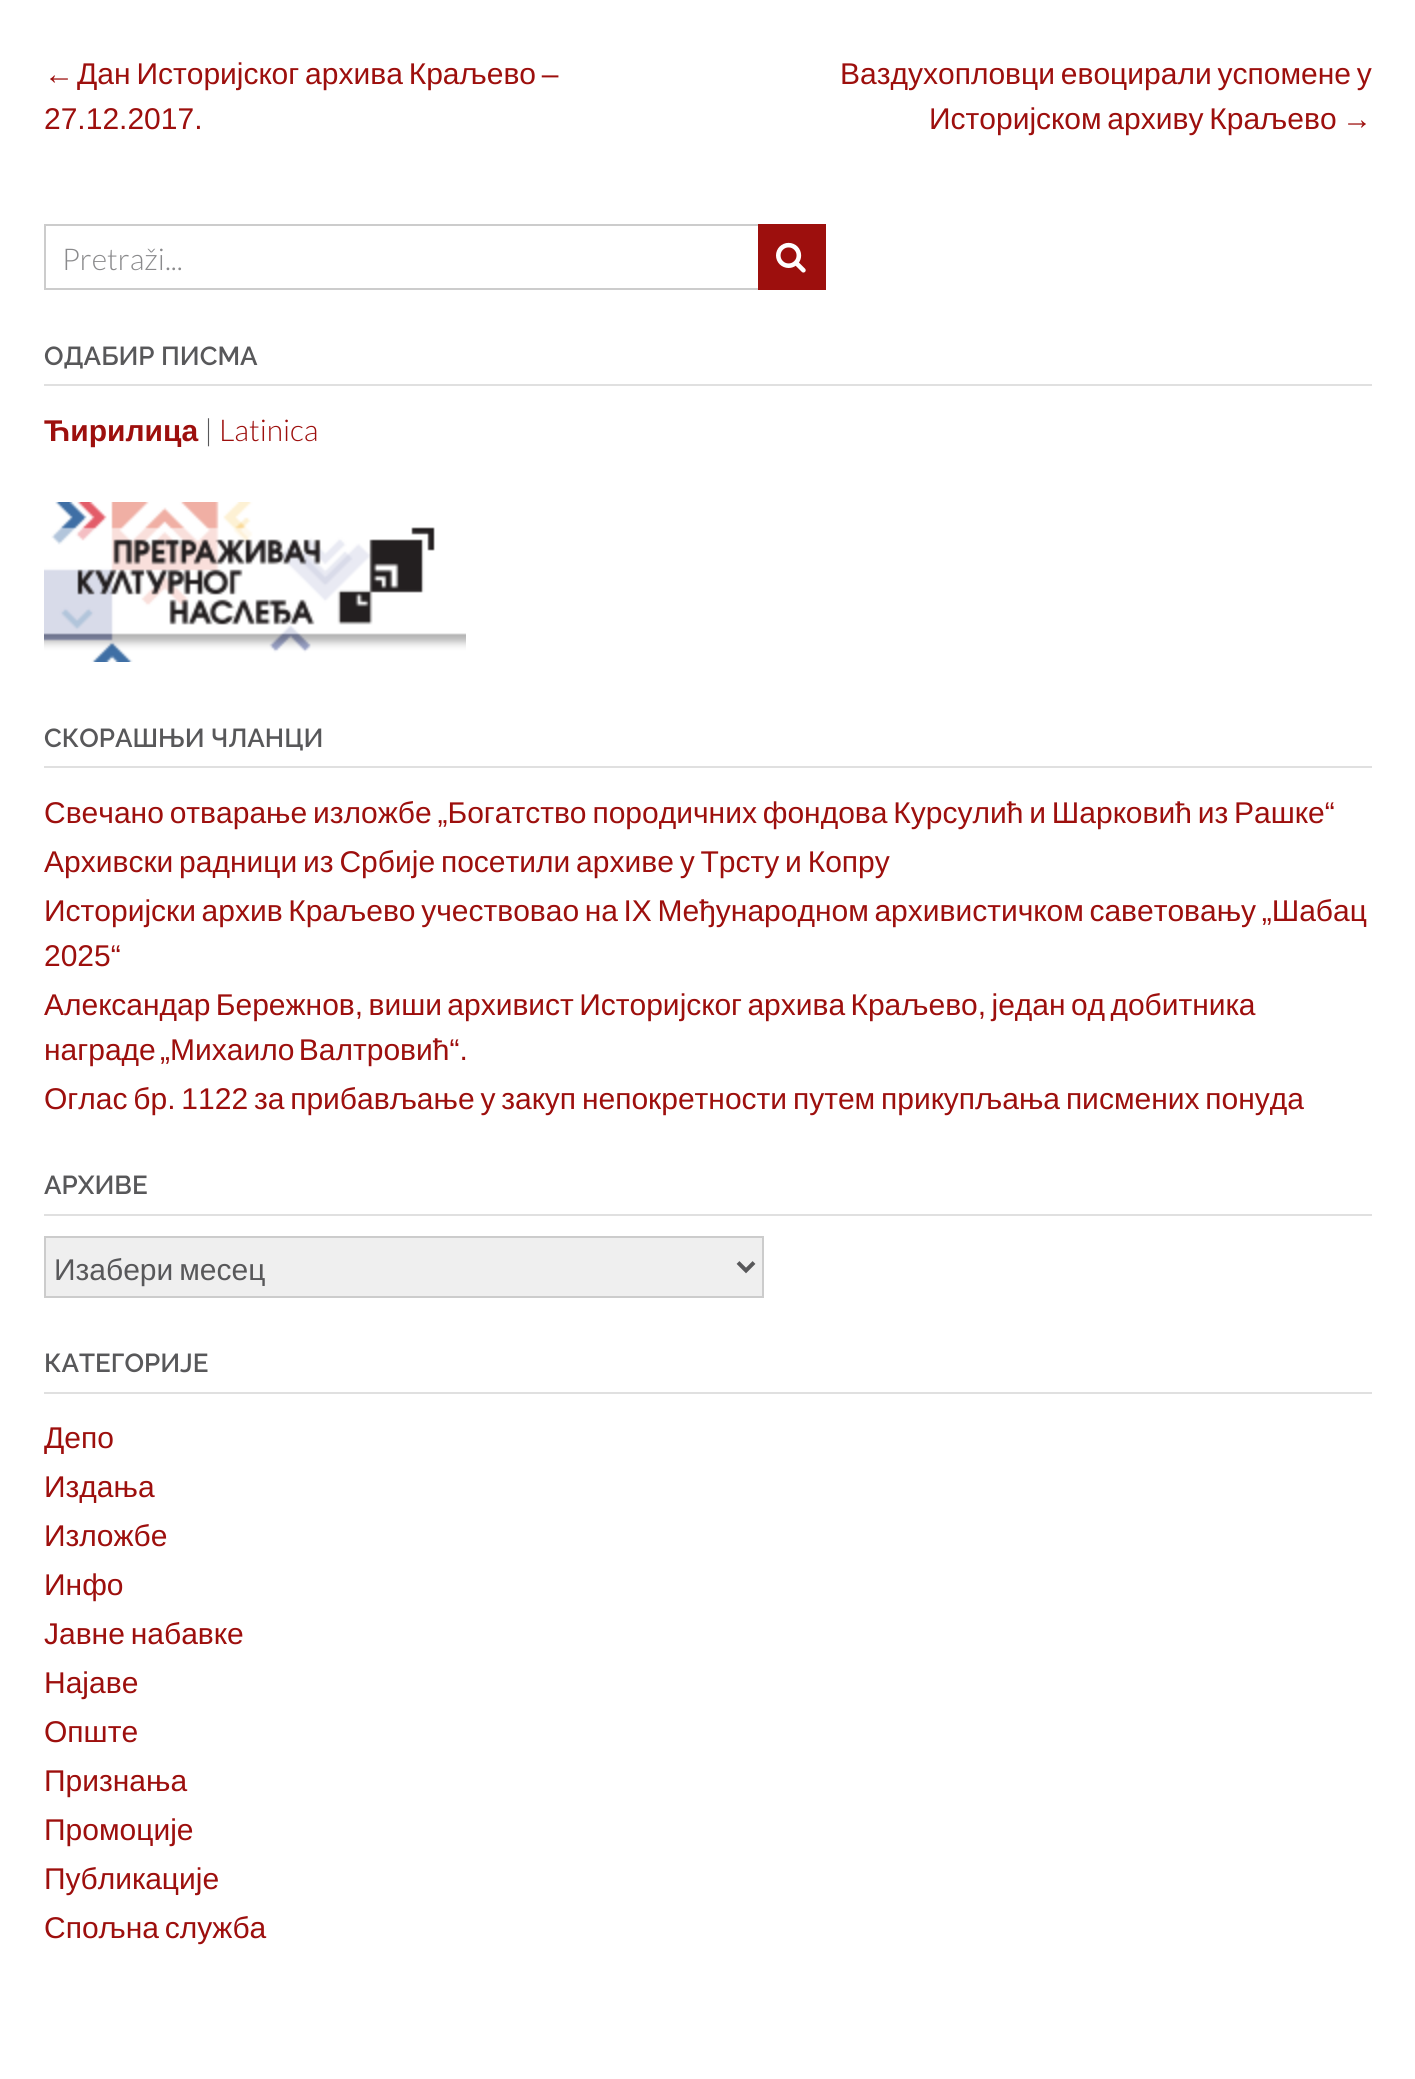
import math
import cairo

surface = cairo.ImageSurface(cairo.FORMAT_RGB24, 1415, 2079)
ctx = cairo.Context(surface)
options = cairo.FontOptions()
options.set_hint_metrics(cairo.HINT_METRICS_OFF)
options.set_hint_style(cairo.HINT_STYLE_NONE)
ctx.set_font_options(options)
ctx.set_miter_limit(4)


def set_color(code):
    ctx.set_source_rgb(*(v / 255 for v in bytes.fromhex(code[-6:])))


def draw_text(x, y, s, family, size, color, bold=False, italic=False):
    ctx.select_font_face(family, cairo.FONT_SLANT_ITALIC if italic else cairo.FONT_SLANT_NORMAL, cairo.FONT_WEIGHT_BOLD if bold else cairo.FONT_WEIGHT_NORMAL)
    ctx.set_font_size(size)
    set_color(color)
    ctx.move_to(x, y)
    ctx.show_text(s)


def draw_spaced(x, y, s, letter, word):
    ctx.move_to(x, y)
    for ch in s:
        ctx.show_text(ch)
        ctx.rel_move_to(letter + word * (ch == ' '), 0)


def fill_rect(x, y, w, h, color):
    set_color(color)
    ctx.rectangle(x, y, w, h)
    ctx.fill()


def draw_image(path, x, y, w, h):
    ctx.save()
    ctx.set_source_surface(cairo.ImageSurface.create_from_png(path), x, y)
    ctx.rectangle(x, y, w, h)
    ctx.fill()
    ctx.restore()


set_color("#ffffff")
ctx.paint()
draw_text(44, 84, "←", "Liberation Sans", 30, "#9d0f0d")
draw_spaced(77, 84, "Дан Историјског архива Краљево –", 0, -2.5)
draw_text(44, 129, "27.12.2017.", "Liberation Sans", 30, "#9d0f0d")
draw_spaced(840, 84, "Ваздухопловци евоцирали успомене у", 0, -2.5)
draw_spaced(929, 129, "Историјском архиву Краљево", 0, -2.5)
draw_text(1342, 129, "→", "Liberation Sans", 30, "#9d0f0d")
ctx.rectangle(45, 225, 718, 64)
set_color("#cccccc")
ctx.stroke()
draw_text(62, 270, "Pretraži...", "Lato Light", 30, "#8a8a8c")
fill_rect(758, 224, 68, 66, "#9d0f0d")
draw_image("assets/img1.png", 776, 242, 30, 31)
fill_rect(44, 384, 1328, 2, "#e0e0e0")
draw_text(44, 365, "ОДАБИР ПИСМА", "Raleway SemiBold", 26, "#58585a")
draw_text(44, 441, "Ћирилица", "Liberation Sans", 30, "#9d0f0d", bold=True)
draw_text(204, 441, "|", "Lato Light", 30, "#58585a")
draw_text(219, 441, "Latinica", "Lato Light", 30, "#9d0f0d")
draw_image("assets/img2.png", 44, 502, 422, 160)
fill_rect(44, 766, 1328, 2, "#e0e0e0")
draw_text(44, 747, "СКОРАШЊИ ЧЛАНЦИ", "Raleway SemiBold", 26, "#58585a")
ctx.select_font_face("Liberation Sans")
ctx.set_font_size(30)
set_color("#9d0f0d")
draw_spaced(44, 823, "Свечано отварање изложбе „Богатство породичних фондова Курсулић и Шарковић из Рашке“", 0, -2.5)
draw_spaced(44, 872, "Архивски радници из Србије посетили архиве у Трсту и Копру", 0, -2.5)
draw_spaced(44, 921, "Историјски архив Краљево учествовао на IX Међународном архивистичком саветовању „Шабац", 0, -2.75)
draw_text(44, 966, "2025“", "Liberation Sans", 30, "#9d0f0d")
draw_spaced(44, 1015, "Александар Бережнов, виши архивист Историјског архива Краљево, један од добитника", 0, -3)
draw_spaced(44, 1060, "награде „Михаило Валтровић“.", 0, -4)
draw_spaced(44, 1109, "Оглас бр. 1122 за прибављање у закуп непокретности путем прикупљања писмених понуда", 0, -2.5)
fill_rect(44, 1214, 1328, 2, "#e0e0e0")
draw_text(44, 1194, "АРХИВЕ", "Raleway SemiBold", 26, "#58585a")
set_color("#efefef")
ctx.rectangle(45, 1237, 718, 60)
ctx.fill_preserve()
set_color("#cccccc")
ctx.stroke()
ctx.new_path()
ctx.move_to(738, 1262.5)
ctx.line_to(746, 1270.5)
ctx.line_to(754, 1262.5)
set_color("#58585a")
ctx.set_line_width(4)
ctx.stroke()
ctx.select_font_face("Liberation Sans")
ctx.set_font_size(30)
draw_spaced(54, 1280, "Изабери месец", 0, -2.5)
fill_rect(44, 1392, 1328, 2, "#e0e0e0")
draw_text(44, 1372, "КАТЕГОРИЈЕ", "Raleway SemiBold", 26, "#58585a")
draw_text(44, 1448, "Депо", "Liberation Sans", 30, "#9d0f0d")
draw_text(44, 1497, "Издања", "Liberation Sans", 30, "#9d0f0d")
draw_text(44, 1546, "Изложбе", "Liberation Sans", 30, "#9d0f0d")
draw_text(44, 1595, "Инфо", "Liberation Sans", 30, "#9d0f0d")
draw_spaced(44, 1644, "Јавне набавке", 0, -2.5)
draw_text(44, 1693, "Најаве", "Liberation Sans", 30, "#9d0f0d")
draw_text(44, 1742, "Опште", "Liberation Sans", 30, "#9d0f0d")
draw_text(44, 1791, "Признања", "Liberation Sans", 30, "#9d0f0d")
draw_text(44, 1840, "Промоције", "Liberation Sans", 30, "#9d0f0d")
draw_text(44, 1889, "Публикације", "Liberation Sans", 30, "#9d0f0d")
draw_spaced(44, 1938, "Спољна служба", 0, -2.5)
surface.write_to_png("output.png")
